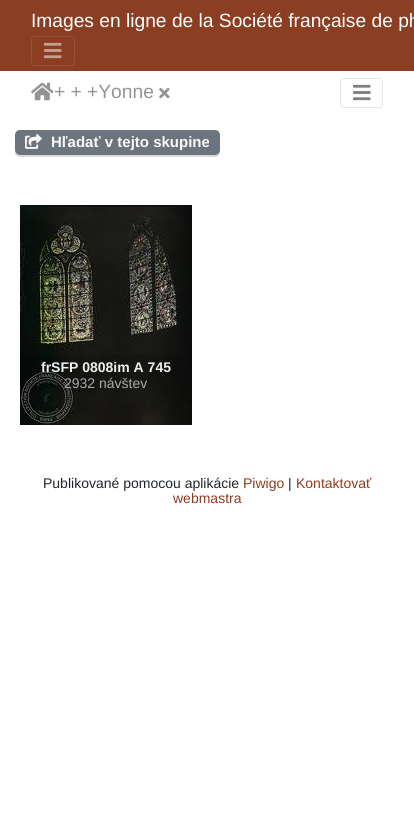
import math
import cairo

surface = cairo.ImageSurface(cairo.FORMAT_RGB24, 414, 833)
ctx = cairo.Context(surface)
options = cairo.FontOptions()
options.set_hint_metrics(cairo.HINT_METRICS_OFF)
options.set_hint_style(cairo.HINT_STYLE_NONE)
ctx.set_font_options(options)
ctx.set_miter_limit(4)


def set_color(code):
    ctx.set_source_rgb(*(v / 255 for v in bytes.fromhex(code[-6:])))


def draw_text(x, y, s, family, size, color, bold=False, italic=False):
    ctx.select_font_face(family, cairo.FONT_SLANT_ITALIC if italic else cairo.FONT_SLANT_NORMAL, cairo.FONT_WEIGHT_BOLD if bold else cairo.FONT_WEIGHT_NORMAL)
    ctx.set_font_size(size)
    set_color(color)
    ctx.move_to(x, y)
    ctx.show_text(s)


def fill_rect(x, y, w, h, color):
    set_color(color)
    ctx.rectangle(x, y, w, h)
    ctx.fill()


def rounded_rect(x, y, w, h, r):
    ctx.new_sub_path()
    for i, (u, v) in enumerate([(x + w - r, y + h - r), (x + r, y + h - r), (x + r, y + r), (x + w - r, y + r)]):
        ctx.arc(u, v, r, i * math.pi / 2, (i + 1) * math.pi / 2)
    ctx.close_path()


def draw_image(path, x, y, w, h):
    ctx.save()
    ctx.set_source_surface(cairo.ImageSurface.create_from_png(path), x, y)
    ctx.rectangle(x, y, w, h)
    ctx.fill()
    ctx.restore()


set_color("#ffffff")
ctx.paint()
fill_rect(0, 0, 414, 71, "#8b3e22")
draw_text(31, 27, "Images en ligne de la Société française de ph", "Liberation Sans", 19.2, "#ffffff")
rounded_rect(31.5, 36.5, 43, 29, 3.5)
set_color("#975138")
ctx.set_line_width(1)
ctx.stroke()
draw_image("assets/img1.png", 44, 42, 18, 17)
draw_image("assets/img2.png", 31, 82, 23, 19)
draw_text(54, 98, "+ + +Yonne", "Liberation Sans", 19.2, "#949494")
draw_image("assets/img3.png", 159, 87, 11, 12)
rounded_rect(340.5, 78.5, 42, 29, 3.5)
set_color("#e6e6e6")
ctx.stroke()
draw_image("assets/img4.png", 353, 84, 18, 17)
set_color("#dbdbdb")
ctx.new_path()
ctx.move_to(15, 150)
ctx.line_to(15, 152)
ctx.curve_to(15, 155, 17, 157, 20, 157)
ctx.line_to(215, 157)
ctx.curve_to(218, 157, 220, 155, 220, 152)
ctx.line_to(220, 150)
ctx.curve_to(220, 153, 218, 155, 215, 155)
ctx.line_to(20, 155)
ctx.curve_to(17, 155, 15, 153, 15, 150)
ctx.close_path()
ctx.fill()
set_color("#6c757d")
rounded_rect(15, 130, 205, 25, 5)
ctx.fill()
draw_image("assets/img5.png", 25, 133, 17, 16)
draw_text(51, 147, "Hľadať v tejto skupine", "Liberation Sans", 15, "#f8f9fa", bold=True)
draw_image("assets/img6.png", 20, 205, 172, 220)
ctx.set_source_rgba(0, 0, 0, 0.15)
ctx.rectangle(20, 355, 164, 70)
ctx.fill()
draw_text(41, 372, "frSFP 0808im A 745", "Liberation Sans", 14, "#eeeeee", bold=True)
draw_text(64, 388, "2932 návštev", "Liberation Sans", 14, "#aaaaaa")
draw_text(43, 488, "Publikované pomocou aplikácie", "Liberation Sans", 14, "#212529")
draw_text(243, 488, "Piwigo", "Liberation Sans", 14, "#8b3e22")
draw_text(288, 488, "|", "Liberation Sans", 14, "#212529")
draw_text(296, 488, "Kontaktovať", "Liberation Sans", 14, "#8b3e22")
draw_text(173, 503, "webmastra", "Liberation Sans", 14, "#8b3e22")
surface.write_to_png("output.png")
